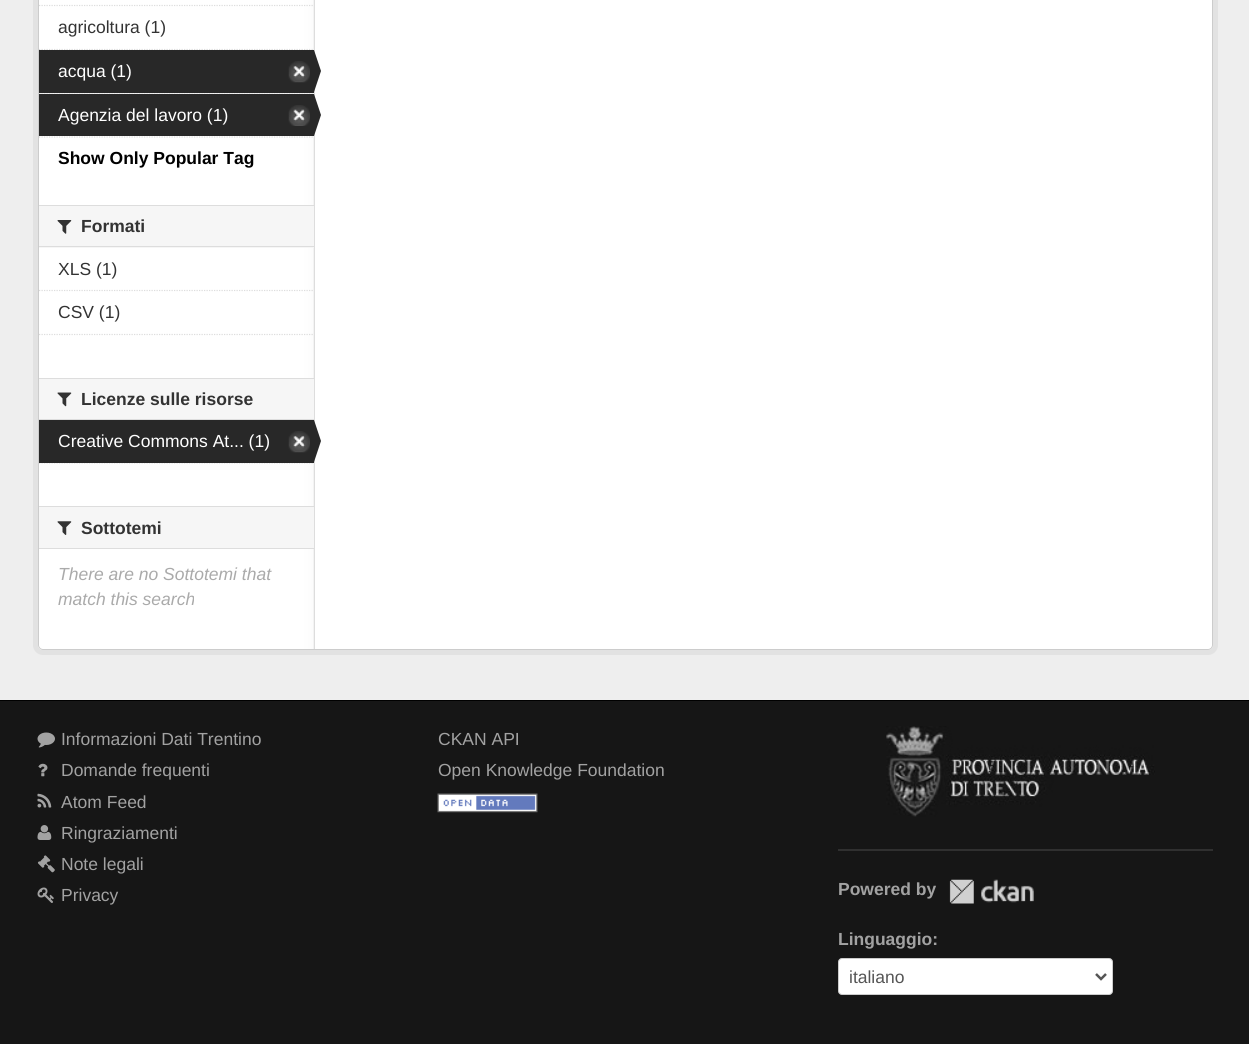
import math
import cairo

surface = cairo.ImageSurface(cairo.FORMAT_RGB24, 1249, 1044)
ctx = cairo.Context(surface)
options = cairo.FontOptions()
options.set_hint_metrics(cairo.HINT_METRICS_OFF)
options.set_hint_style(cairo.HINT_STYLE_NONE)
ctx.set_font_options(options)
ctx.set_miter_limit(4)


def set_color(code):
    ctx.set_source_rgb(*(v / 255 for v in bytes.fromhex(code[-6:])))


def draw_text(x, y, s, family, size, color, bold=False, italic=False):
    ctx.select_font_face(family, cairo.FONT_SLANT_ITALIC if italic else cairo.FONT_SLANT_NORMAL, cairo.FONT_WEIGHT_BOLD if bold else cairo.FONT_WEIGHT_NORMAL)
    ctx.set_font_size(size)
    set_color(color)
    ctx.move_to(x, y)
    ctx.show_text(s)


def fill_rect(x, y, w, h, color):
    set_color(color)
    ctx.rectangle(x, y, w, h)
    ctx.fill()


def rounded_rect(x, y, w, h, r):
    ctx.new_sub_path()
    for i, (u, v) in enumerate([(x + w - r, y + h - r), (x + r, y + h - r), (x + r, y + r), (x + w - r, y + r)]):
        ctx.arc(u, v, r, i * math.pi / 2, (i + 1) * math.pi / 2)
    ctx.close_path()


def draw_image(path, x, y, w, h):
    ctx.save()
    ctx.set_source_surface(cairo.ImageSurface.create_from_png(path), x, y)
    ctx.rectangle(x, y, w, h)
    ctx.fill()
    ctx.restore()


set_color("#161616")
ctx.paint()
fill_rect(0, 0, 1249, 700, "#eeeeee")
rounded_rect(35.5, -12.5, 1180, 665, 7.5)
set_color("#e2e2e2")
ctx.set_line_width(5)
ctx.stroke()
set_color("#ffffff")
rounded_rect(38, -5, 1175, 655, 5)
ctx.fill()
draw_image("assets/img1.png", 39, 0, 276, 650)
rounded_rect(38.5, -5.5, 1174, 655, 4.5)
set_color("#cccccc")
ctx.set_line_width(1)
ctx.stroke()
ctx.new_path()
ctx.move_to(39, 5.5)
ctx.line_to(314, 5.5)
set_color("#dddddd")
ctx.set_line_width(1.2)
ctx.set_dash([1.25, 1.25])
ctx.stroke()
ctx.new_path()
ctx.move_to(39, 49.5)
ctx.line_to(314, 49.5)
ctx.stroke()
draw_text(58, 33, "agricoltura (1)", "Liberation Sans", 17.5, "#333333")
fill_rect(39, 93, 275, 1, "#f6f6f6")
ctx.new_path()
ctx.move_to(39, 93)
ctx.line_to(314, 93)
set_color("#dddddd")
ctx.stroke()
fill_rect(39, 50, 275, 43, "#282828")
draw_text(58, 77, "acqua (1)", "Liberation Sans", 17.5, "#ffffff")
draw_image("assets/img2.png", 288, 61, 22, 22)
set_color("#282828")
ctx.new_path()
ctx.move_to(314, 92)
ctx.line_to(314, 50)
ctx.line_to(321, 71)
ctx.close_path()
ctx.fill()
fill_rect(39, 94, 275, 42, "#282828")
draw_text(58, 121, "Agenzia del lavoro (1)", "Liberation Sans", 17.5, "#ffffff")
draw_image("assets/img3.png", 288, 105, 22, 21)
set_color("#282828")
ctx.new_path()
ctx.move_to(314, 136)
ctx.line_to(314, 94)
ctx.line_to(321, 115)
ctx.close_path()
ctx.fill()
ctx.new_path()
ctx.move_to(39, 137)
ctx.line_to(314, 137)
set_color("#dddddd")
ctx.stroke()
draw_text(58, 164, "Show Only Popular Tag", "Liberation Sans", 17.5, "#000000", bold=True)
fill_rect(39, 206, 275, 42, "#f6f6f6")
fill_rect(39, 205, 275, 1, "#dddddd")
fill_rect(39, 246, 275, 1, "#dddddd")
draw_image("assets/img4.png", 57, 220, 15, 14)
draw_text(81, 232, "Formati", "Liberation Sans", 17.5, "#333333", bold=True)
ctx.new_path()
ctx.move_to(39, 290.5)
ctx.line_to(314, 290.5)
set_color("#dddddd")
ctx.stroke()
draw_text(58, 275, "XLS (1)", "Liberation Sans", 17.5, "#333333")
draw_text(58, 318, "CSV (1)", "Liberation Sans", 17.5, "#333333")
ctx.new_path()
ctx.move_to(39, 334.5)
ctx.line_to(314, 334.5)
set_color("#dddddd")
ctx.stroke()
fill_rect(39, 379, 275, 40, "#f6f6f6")
fill_rect(39, 378, 275, 1, "#dddddd")
fill_rect(39, 419, 275, 1, "#dddddd")
draw_image("assets/img5.png", 57, 392, 15, 15)
draw_text(81, 405, "Licenze sulle risorse", "Liberation Sans", 17.5, "#333333", bold=True)
ctx.new_path()
ctx.move_to(39, 463)
ctx.line_to(314, 463)
set_color("#dddddd")
ctx.stroke()
fill_rect(39, 420, 275, 43, "#282828")
draw_text(58, 447, "Creative Commons At... (1)", "Liberation Sans", 17.5, "#ffffff")
draw_image("assets/img2.png", 288, 431, 22, 22)
set_color("#282828")
ctx.new_path()
ctx.move_to(314, 462)
ctx.line_to(314, 420)
ctx.line_to(321, 441)
ctx.close_path()
ctx.fill()
fill_rect(39, 507, 275, 41, "#f6f6f6")
fill_rect(39, 506, 275, 1, "#dddddd")
fill_rect(39, 548, 275, 1, "#dddddd")
draw_image("assets/img6.png", 57, 521, 15, 14)
draw_text(81, 534, "Sottotemi", "Liberation Sans", 17.5, "#333333", bold=True)
draw_text(58, 580, "There are no Sottotemi that", "Liberation Sans", 17.5, "#aaaaaa", italic=True)
draw_text(58, 605, "match this search", "Liberation Sans", 17.5, "#aaaaaa", italic=True)
fill_rect(0, 700, 1249, 1, "#000000")
draw_image("assets/img7.png", 37, 732, 18, 16)
draw_text(61, 745, "Informazioni Dati Trentino", "Liberation Sans", 17.5, "#a2a2a2")
draw_image("assets/img8.png", 38, 763, 10, 14)
draw_text(61, 776, "Domande frequenti", "Liberation Sans", 17.5, "#a2a2a2")
draw_image("assets/img9.png", 37, 793, 15, 15)
draw_text(61, 808, "Atom Feed", "Liberation Sans", 17.5, "#a2a2a2")
draw_image("assets/img10.png", 37, 825, 15, 15)
draw_text(61, 839, "Ringraziamenti", "Liberation Sans", 17.5, "#a2a2a2")
draw_image("assets/img11.png", 37, 855, 18, 18)
draw_text(61, 870, "Note legali", "Liberation Sans", 17.5, "#a2a2a2")
draw_image("assets/img12.png", 37, 887, 17, 16)
draw_text(61, 901, "Privacy", "Liberation Sans", 17.5, "#a2a2a2")
draw_text(438, 745, "CKAN API", "Liberation Sans", 17.5, "#a2a2a2")
draw_text(438, 776, "Open Knowledge Foundation", "Liberation Sans", 17.5, "#a2a2a2")
draw_image("assets/img13.png", 437, 793, 101, 20)
draw_image("assets/img14.png", 886, 726, 269, 91)
fill_rect(838, 849, 375, 2, "#303030")
draw_text(838, 895, "Powered by", "Liberation Sans", 17.5, "#a2a2a2", bold=True)
draw_image("assets/img15.png", 949, 879, 85, 25)
draw_text(838, 945, "Linguaggio:", "Liberation Sans", 17.5, "#a2a2a2", bold=True)
set_color("#ffffff")
rounded_rect(838.5, 958.5, 274, 36, 3.5)
ctx.fill_preserve()
set_color("#cccccc")
ctx.set_line_width(1)
ctx.set_dash([])
ctx.stroke()
ctx.new_path()
ctx.move_to(1096, 974)
ctx.line_to(1101, 979)
ctx.line_to(1106, 974)
set_color("#555555")
ctx.set_line_width(2.5)
ctx.stroke()
draw_text(849, 983, "italiano", "Liberation Sans", 17.5, "#555555")
surface.write_to_png("output.png")
